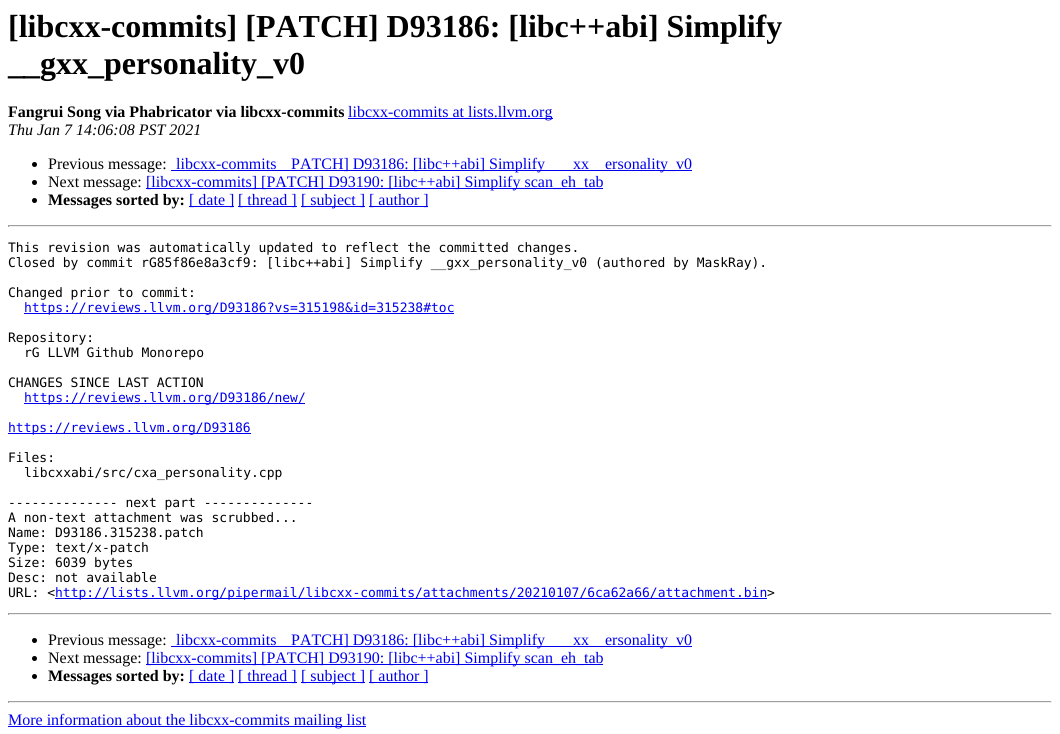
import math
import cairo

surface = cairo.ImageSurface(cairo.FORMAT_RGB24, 1060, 734)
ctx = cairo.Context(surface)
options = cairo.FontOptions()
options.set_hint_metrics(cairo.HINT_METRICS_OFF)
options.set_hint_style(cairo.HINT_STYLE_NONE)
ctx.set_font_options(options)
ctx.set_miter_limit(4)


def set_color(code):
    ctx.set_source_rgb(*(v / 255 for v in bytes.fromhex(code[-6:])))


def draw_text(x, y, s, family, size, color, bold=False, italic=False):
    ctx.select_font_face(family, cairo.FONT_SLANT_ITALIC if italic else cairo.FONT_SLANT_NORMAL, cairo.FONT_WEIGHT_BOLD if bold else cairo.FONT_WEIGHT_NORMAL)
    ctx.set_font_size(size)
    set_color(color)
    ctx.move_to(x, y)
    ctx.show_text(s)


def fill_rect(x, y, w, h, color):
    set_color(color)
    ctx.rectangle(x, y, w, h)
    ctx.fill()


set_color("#ffffff")
ctx.paint()
draw_text(8, 37, "[libcxx-commits] [PATCH] D93186: [libc++abi] Simplify", "Liberation Serif", 32, "#000000", bold=True)
draw_text(8, 74, "__gxx_personality_v0", "Liberation Serif", 32, "#000000", bold=True)
draw_text(8, 117, "Fangrui Song via Phabricator via libcxx-commits", "Liberation Serif", 16, "#000000", bold=True)
fill_rect(348, 118, 205, 1, "#0000ee")
draw_text(348, 117, "libcxx-commits at lists.llvm.org", "Liberation Serif", 16, "#0000ee")
draw_text(8, 135, "Thu Jan 7 14:06:08 PST 2021", "Liberation Serif", 16, "#000000", italic=True)
ctx.new_path()
ctx.arc(34.5, 164.5, 2.5, 0, 2 * math.pi)
ctx.fill()
draw_text(48, 169, "Previous message:", "Liberation Serif", 16, "#000000")
draw_text(176, 169, "libcxx-commits", "Liberation Serif", 16, "#0000ee")
fill_rect(171, 170, 521, 1, "#0000ee")
draw_text(291, 169, "PATCH] D93186: [libc++abi] Simplify", "Liberation Serif", 16, "#0000ee")
draw_text(573, 169, "xx", "Liberation Serif", 16, "#0000ee")
draw_text(605, 169, "ersonality_v0", "Liberation Serif", 16, "#0000ee")
set_color("#000000")
ctx.new_path()
ctx.arc(34.5, 182.5, 2.5, 0, 2 * math.pi)
ctx.fill()
draw_text(48, 187, "Next message:", "Liberation Serif", 16, "#000000")
fill_rect(146, 188, 457, 1, "#0000ee")
draw_text(146, 187, "[libcxx-commits] [PATCH] D93190: [libc++abi] Simplify scan_eh_tab", "Liberation Serif", 16, "#0000ee")
set_color("#000000")
ctx.new_path()
ctx.arc(34.5, 200.5, 2.5, 0, 2 * math.pi)
ctx.fill()
draw_text(48, 205, "Messages sorted by:", "Liberation Serif", 16, "#000000", bold=True)
fill_rect(189, 206, 45, 1, "#0000ee")
draw_text(189, 205, "[ date ]", "Liberation Serif", 16, "#0000ee")
fill_rect(238, 206, 59, 1, "#0000ee")
draw_text(238, 205, "[ thread ]", "Liberation Serif", 16, "#0000ee")
fill_rect(301, 206, 64, 1, "#0000ee")
draw_text(301, 205, "[ subject ]", "Liberation Serif", 16, "#0000ee")
fill_rect(369, 206, 59, 1, "#0000ee")
draw_text(369, 205, "[ author ]", "Liberation Serif", 16, "#0000ee")
fill_rect(8, 225, 1044, 1, "#9f9f9f")
fill_rect(1051, 225, 1, 2, "#eeeeee")
fill_rect(8, 226, 1044, 1, "#eeeeee")
fill_rect(8, 225, 1, 2, "#9f9f9f")
draw_text(8, 252, "This revision was automatically updated to reflect the committed changes.", "DejaVu Sans Mono", 13, "#000000")
draw_text(8, 267, "Closed by commit rG85f86e8a3cf9: [libc++abi] Simplify __gxx_personality_v0 (authored by MaskRay).", "DejaVu Sans Mono", 13, "#000000")
draw_text(8, 297, "Changed prior to commit:", "DejaVu Sans Mono", 13, "#000000")
fill_rect(24, 313, 430, 1, "#0000ee")
draw_text(24, 312, "https://reviews.llvm.org/D93186?vs=315198&id=315238#toc", "DejaVu Sans Mono", 13, "#0000ee")
draw_text(8, 342, "Repository:", "DejaVu Sans Mono", 13, "#000000")
draw_text(24, 357, "rG LLVM Github Monorepo", "DejaVu Sans Mono", 13, "#000000")
draw_text(8, 387, "CHANGES SINCE LAST ACTION", "DejaVu Sans Mono", 13, "#000000")
fill_rect(24, 403, 281, 1, "#0000ee")
draw_text(24, 402, "https://reviews.llvm.org/D93186/new/", "DejaVu Sans Mono", 13, "#0000ee")
fill_rect(8, 433, 243, 1, "#0000ee")
draw_text(8, 432, "https://reviews.llvm.org/D93186", "DejaVu Sans Mono", 13, "#0000ee")
draw_text(8, 462, "Files:", "DejaVu Sans Mono", 13, "#000000")
draw_text(24, 477, "libcxxabi/src/cxa_personality.cpp", "DejaVu Sans Mono", 13, "#000000")
draw_text(8, 507, "-------------- next part --------------", "DejaVu Sans Mono", 13, "#000000")
draw_text(8, 522, "A non-text attachment was scrubbed...", "DejaVu Sans Mono", 13, "#000000")
draw_text(8, 537, "Name: D93186.315238.patch", "DejaVu Sans Mono", 13, "#000000")
draw_text(8, 552, "Type: text/x-patch", "DejaVu Sans Mono", 13, "#000000")
draw_text(8, 567, "Size: 6039 bytes", "DejaVu Sans Mono", 13, "#000000")
draw_text(8, 582, "Desc: not available", "DejaVu Sans Mono", 13, "#000000")
draw_text(8, 597, "URL: <", "DejaVu Sans Mono", 13, "#000000")
fill_rect(55, 598, 712, 1, "#0000ee")
draw_text(55, 597, "http://lists.llvm.org/pipermail/libcxx-commits/attachments/20210107/6ca62a66/attachment.bin", "DejaVu Sans Mono", 13, "#0000ee")
draw_text(767, 597, ">", "DejaVu Sans Mono", 13, "#000000")
fill_rect(8, 613, 1044, 1, "#9f9f9f")
fill_rect(1051, 613, 1, 2, "#eeeeee")
fill_rect(8, 614, 1044, 1, "#eeeeee")
fill_rect(8, 613, 1, 2, "#9f9f9f")
set_color("#000000")
ctx.new_path()
ctx.arc(34.5, 640.5, 2.5, 0, 2 * math.pi)
ctx.fill()
draw_text(48, 645, "Previous message:", "Liberation Serif", 16, "#000000")
draw_text(176, 645, "libcxx-commits", "Liberation Serif", 16, "#0000ee")
fill_rect(171, 646, 521, 1, "#0000ee")
draw_text(291, 645, "PATCH] D93186: [libc++abi] Simplify", "Liberation Serif", 16, "#0000ee")
draw_text(573, 645, "xx", "Liberation Serif", 16, "#0000ee")
draw_text(605, 645, "ersonality_v0", "Liberation Serif", 16, "#0000ee")
set_color("#000000")
ctx.new_path()
ctx.arc(34.5, 658.5, 2.5, 0, 2 * math.pi)
ctx.fill()
draw_text(48, 663, "Next message:", "Liberation Serif", 16, "#000000")
fill_rect(146, 664, 457, 1, "#0000ee")
draw_text(146, 663, "[libcxx-commits] [PATCH] D93190: [libc++abi] Simplify scan_eh_tab", "Liberation Serif", 16, "#0000ee")
set_color("#000000")
ctx.new_path()
ctx.arc(34.5, 676.5, 2.5, 0, 2 * math.pi)
ctx.fill()
draw_text(48, 681, "Messages sorted by:", "Liberation Serif", 16, "#000000", bold=True)
fill_rect(189, 682, 45, 1, "#0000ee")
draw_text(189, 681, "[ date ]", "Liberation Serif", 16, "#0000ee")
fill_rect(238, 682, 59, 1, "#0000ee")
draw_text(238, 681, "[ thread ]", "Liberation Serif", 16, "#0000ee")
fill_rect(301, 682, 64, 1, "#0000ee")
draw_text(301, 681, "[ subject ]", "Liberation Serif", 16, "#0000ee")
fill_rect(369, 682, 59, 1, "#0000ee")
draw_text(369, 681, "[ author ]", "Liberation Serif", 16, "#0000ee")
fill_rect(8, 701, 1044, 1, "#9f9f9f")
fill_rect(1051, 701, 1, 2, "#eeeeee")
fill_rect(8, 702, 1044, 1, "#eeeeee")
fill_rect(8, 701, 1, 2, "#9f9f9f")
fill_rect(8, 726, 358, 1, "#0000ee")
draw_text(8, 725, "More information about the libcxx-commits mailing list", "Liberation Serif", 16, "#0000ee")
surface.write_to_png("output.png")
